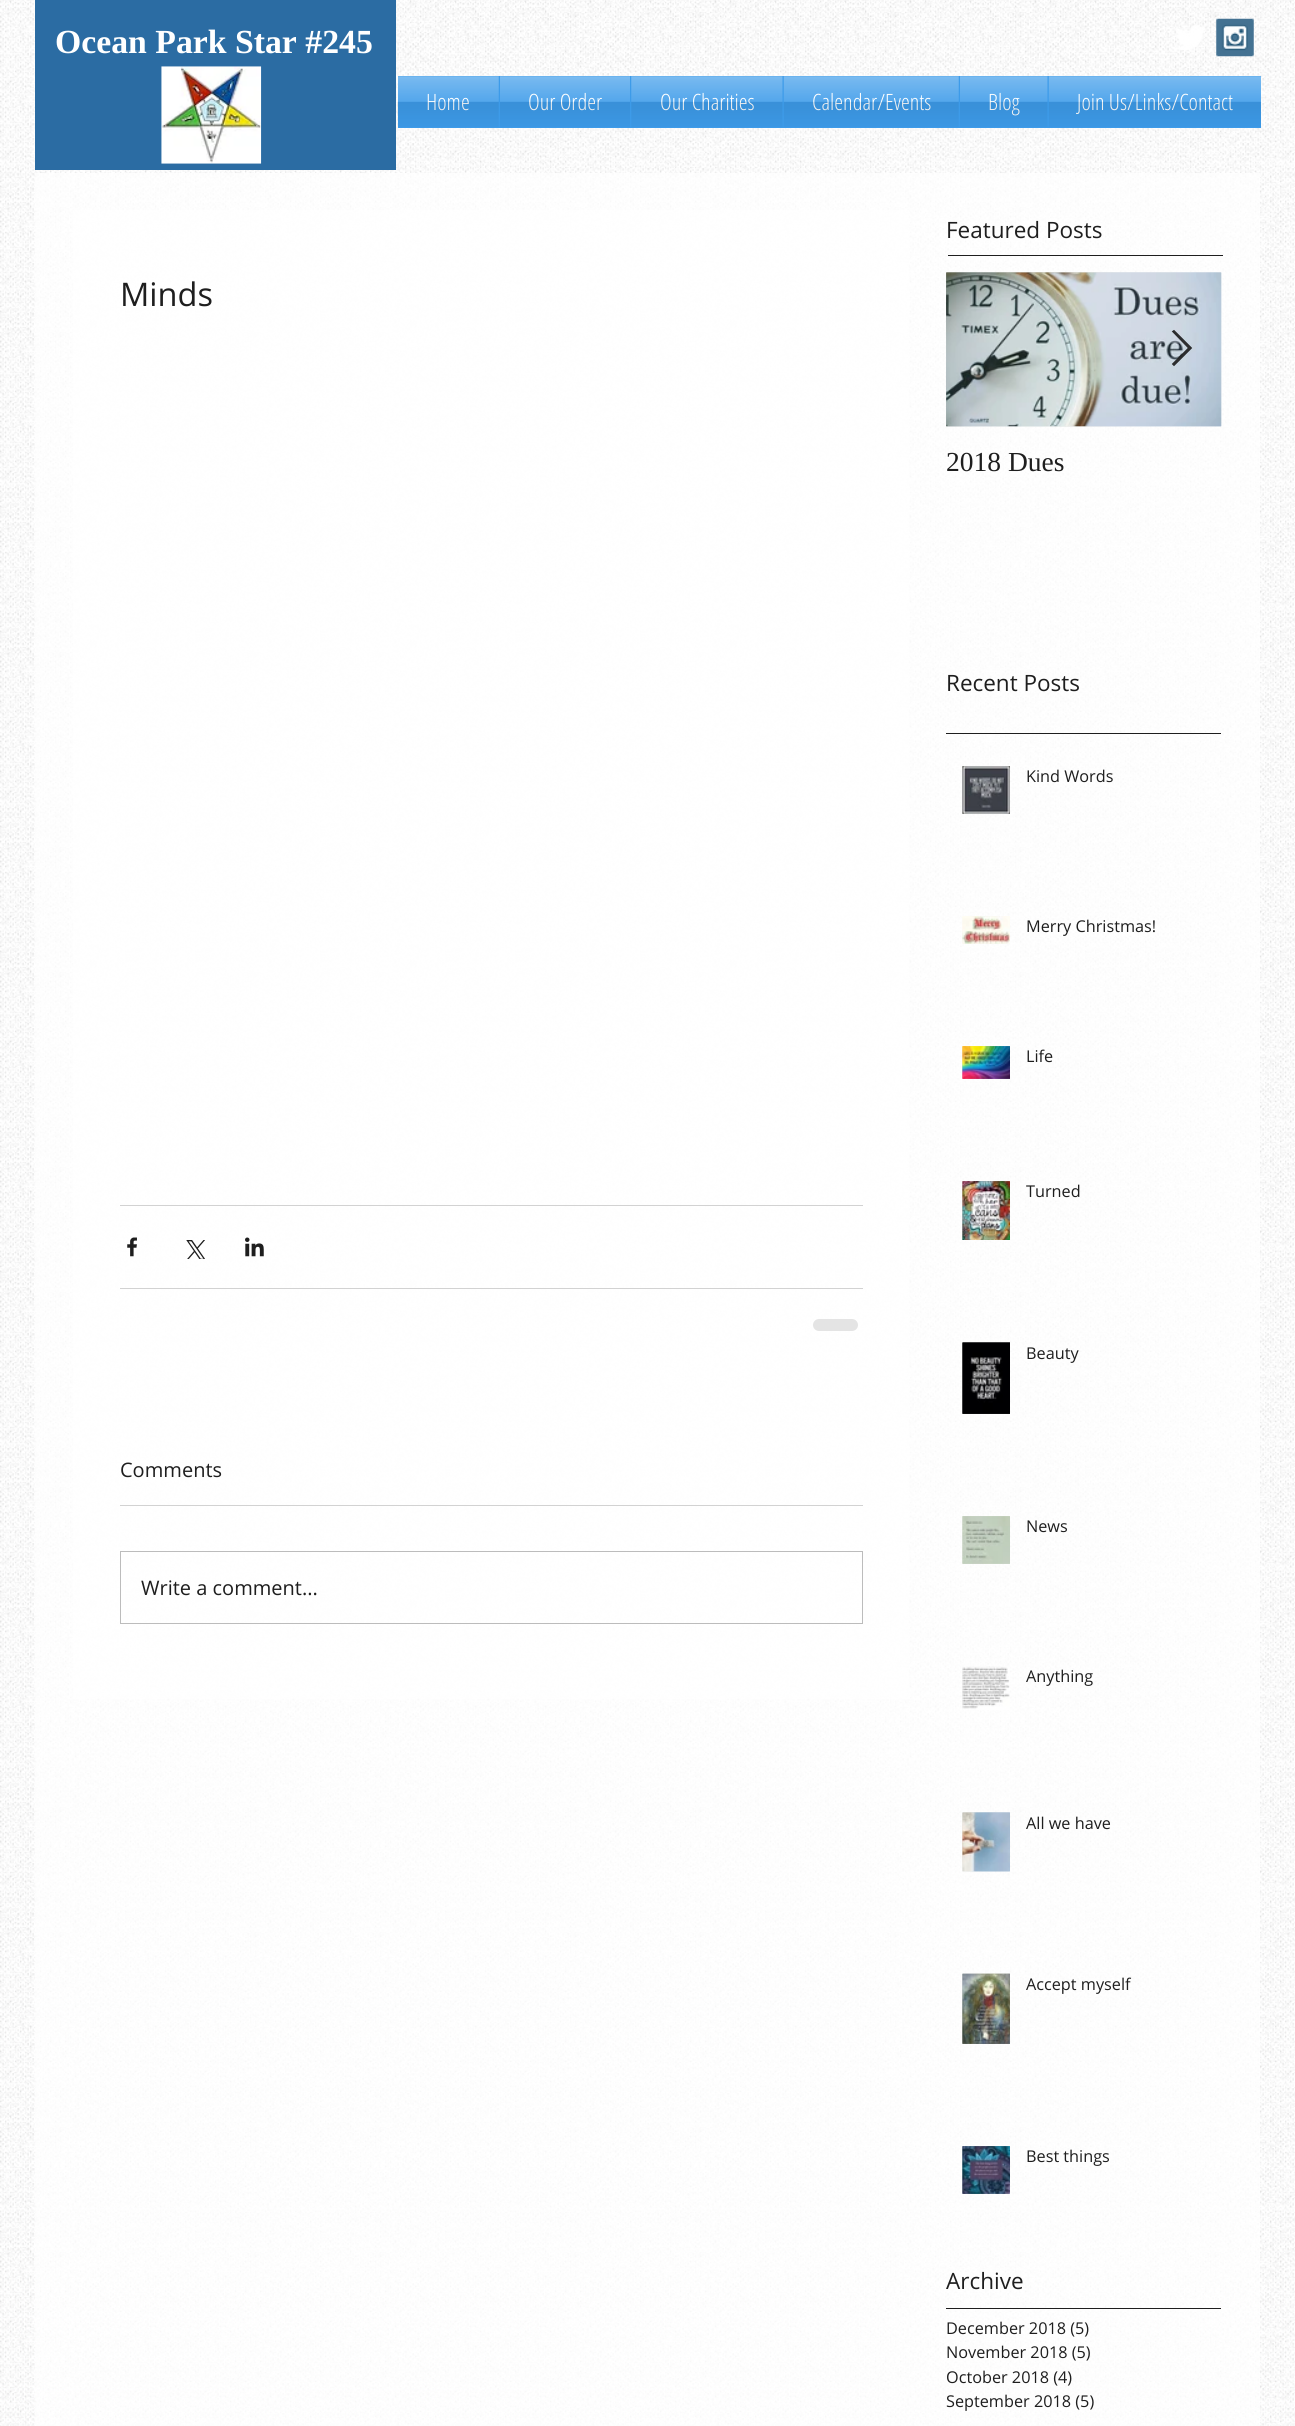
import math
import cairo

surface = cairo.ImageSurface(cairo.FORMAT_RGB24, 1295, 2426)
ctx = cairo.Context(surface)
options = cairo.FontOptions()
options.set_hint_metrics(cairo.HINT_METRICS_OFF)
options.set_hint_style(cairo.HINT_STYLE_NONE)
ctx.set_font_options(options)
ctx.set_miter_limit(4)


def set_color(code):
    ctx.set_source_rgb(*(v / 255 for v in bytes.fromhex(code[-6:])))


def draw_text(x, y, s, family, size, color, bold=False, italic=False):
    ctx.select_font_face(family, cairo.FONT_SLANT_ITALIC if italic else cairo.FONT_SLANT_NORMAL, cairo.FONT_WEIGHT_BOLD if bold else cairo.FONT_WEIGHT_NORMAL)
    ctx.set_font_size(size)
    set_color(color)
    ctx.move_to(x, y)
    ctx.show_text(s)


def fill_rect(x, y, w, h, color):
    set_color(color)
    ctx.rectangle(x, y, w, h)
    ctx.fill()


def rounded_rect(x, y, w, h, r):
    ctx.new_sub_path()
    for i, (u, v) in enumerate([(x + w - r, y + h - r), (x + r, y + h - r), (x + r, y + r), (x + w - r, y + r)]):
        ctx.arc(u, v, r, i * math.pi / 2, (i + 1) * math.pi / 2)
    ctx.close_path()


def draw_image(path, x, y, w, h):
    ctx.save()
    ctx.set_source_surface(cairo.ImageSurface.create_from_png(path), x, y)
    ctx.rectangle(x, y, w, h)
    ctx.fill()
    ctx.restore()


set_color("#ffffff")
ctx.paint()
draw_image("assets/img1.png", 0, 0, 1295, 2426)
fill_rect(35, 0, 361, 170, "#2b6ca3")
draw_text(55, 53, "Ocean Park Star #245", "Liberation Serif", 33.75, "#ffffff", bold=True)
draw_image("assets/img2.png", 161, 66, 101, 98)
draw_image("assets/img3.png", 1175, 25, 31, 25)
draw_image("assets/img4.png", 1216, 18, 38, 39)
draw_image("assets/img5.png", 397, 76, 1, 40)
fill_rect(398, 76, 863, 52, "#3d9be9")
draw_text(426, 110, "Home", "Open Sans Condensed Light", 22.5, "#ffffff")
draw_image("assets/img6.png", 397, 76, 102, 51)
draw_text(528, 110, "Our Order", "Open Sans Condensed Light", 22.5, "#ffffff")
draw_image("assets/img7.png", 500, 76, 130, 51)
draw_text(660, 110, "Our Charities", "Open Sans Condensed Light", 22.5, "#ffffff")
draw_image("assets/img8.png", 631, 76, 152, 51)
draw_text(812, 110, "Calendar/Events", "Open Sans Condensed Light", 22.5, "#ffffff")
draw_image("assets/img9.png", 783, 76, 176, 51)
draw_text(988, 110, "Blog", "Open Sans Condensed Light", 22.5, "#ffffff")
draw_image("assets/img10.png", 960, 76, 88, 51)
draw_text(1077, 110, "Join Us/Links/Contact", "Open Sans Condensed Light", 22.5, "#ffffff")
draw_image("assets/img11.png", 1048, 76, 213, 51)
ctx.set_source_rgba(1, 1, 1, 0.75)
ctx.rectangle(35, 173, 1225, 2253)
ctx.fill()
draw_text(946, 238, "Featured Posts", "Open Sans", 22.5, "#1e1e1e")
fill_rect(948, 255, 275, 1, "#1e1e1e")
ctx.set_source_rgba(1, 1, 1, 0.75)
ctx.rectangle(73, 210, 836, 1489)
ctx.fill()
draw_text(120, 306, "Minds", "Open Sans", 32.5, "#1e1e1e")
fill_rect(120, 1205, 743, 1, "#d2d2d2")
draw_image("assets/img12.png", 127, 1237, 10, 20)
draw_image("assets/img13.png", 186, 1240, 19, 19)
draw_image("assets/img14.png", 245, 1237, 19, 20)
fill_rect(120, 1288, 743, 1, "#d2d2d2")
set_color("#e4e4e4")
rounded_rect(813, 1319, 45, 12, 6)
ctx.fill()
draw_text(120, 1477, "Comments", "Open Sans", 20, "#1e1e1e")
fill_rect(120, 1505, 743, 1, "#d2d2d2")
ctx.rectangle(120.5, 1551.5, 742, 72)
set_color("#bcbcbc")
ctx.set_line_width(1)
ctx.stroke()
draw_text(141, 1595, "Write a comment...", "Open Sans", 20, "#1e1e1e")
draw_image("assets/img15.png", 946, 272, 276, 155)
draw_image("assets/img16.png", 946, 272, 276, 155)
ctx.set_source_rgba(0.118, 0.118, 0.118, 0.9)
ctx.new_path()
ctx.move_to(1172.5, 331.5)
ctx.line_to(1174, 330.5)
ctx.line_to(1191.5, 348)
ctx.line_to(1174, 365.5)
ctx.line_to(1172.5, 364)
ctx.line_to(1188.5, 348)
ctx.close_path()
ctx.fill_preserve()
ctx.stroke()
draw_text(946, 471, "2018 Dues", "Liberation Serif", 27.5, "#1e1e1e")
draw_text(946, 691, "Recent Posts", "Open Sans", 22.5, "#1e1e1e")
fill_rect(946, 733, 275, 1, "#1e1e1e")
draw_image("assets/img17.png", 962, 766, 48, 48)
draw_image("assets/img18.png", 962, 766, 48, 48)
draw_text(1026, 782, "Kind Words", "Open Sans", 16.25, "#1e1e1e")
draw_image("assets/img19.png", 962, 916, 48, 28)
draw_image("assets/img20.png", 962, 916, 48, 28)
draw_text(1026, 932, "Merry Christmas!", "Open Sans", 16.25, "#1e1e1e")
draw_image("assets/img21.png", 962, 1046, 48, 33)
draw_image("assets/img22.png", 962, 1046, 48, 33)
draw_text(1026, 1062, "Life", "Open Sans", 16.25, "#1e1e1e")
draw_image("assets/img23.png", 962, 1181, 48, 59)
draw_image("assets/img24.png", 962, 1181, 48, 59)
draw_text(1026, 1197, "Turned", "Open Sans", 16.25, "#1e1e1e")
draw_image("assets/img25.png", 962, 1342, 48, 72)
draw_image("assets/img26.png", 962, 1342, 48, 72)
draw_text(1026, 1359, "Beauty", "Open Sans", 16.25, "#1e1e1e")
draw_image("assets/img27.png", 962, 1516, 48, 48)
draw_image("assets/img28.png", 962, 1516, 48, 48)
draw_text(1026, 1532, "News", "Open Sans", 16.25, "#1e1e1e")
draw_image("assets/img29.png", 962, 1666, 48, 44)
draw_image("assets/img30.png", 962, 1666, 48, 44)
draw_text(1026, 1682, "Anything", "Open Sans", 16.25, "#1e1e1e")
draw_image("assets/img31.png", 962, 1812, 48, 60)
draw_image("assets/img32.png", 962, 1812, 48, 60)
draw_text(1026, 1829, "All we have", "Open Sans", 16.25, "#1e1e1e")
draw_image("assets/img33.png", 962, 1973, 48, 71)
draw_image("assets/img34.png", 962, 1973, 48, 71)
draw_text(1026, 1990, "Accept myself", "Open Sans", 16.25, "#1e1e1e")
draw_image("assets/img35.png", 962, 2146, 48, 48)
draw_image("assets/img36.png", 962, 2146, 48, 48)
draw_text(1026, 2162, "Best things", "Open Sans", 16.25, "#1e1e1e")
draw_text(946, 2289, "Archive", "Open Sans", 22.5, "#1e1e1e")
fill_rect(946, 2308, 275, 1, "#1e1e1e")
draw_text(946, 2334, "December 2018 (5)", "Open Sans", 16.25, "#1e1e1e")
draw_text(946, 2358, "November 2018 (5)", "Open Sans", 16.25, "#1e1e1e")
draw_text(946, 2383, "October 2018 (4)", "Open Sans", 16.25, "#1e1e1e")
draw_text(946, 2407, "September 2018 (5)", "Open Sans", 16.25, "#1e1e1e")
surface.write_to_png("output.png")
